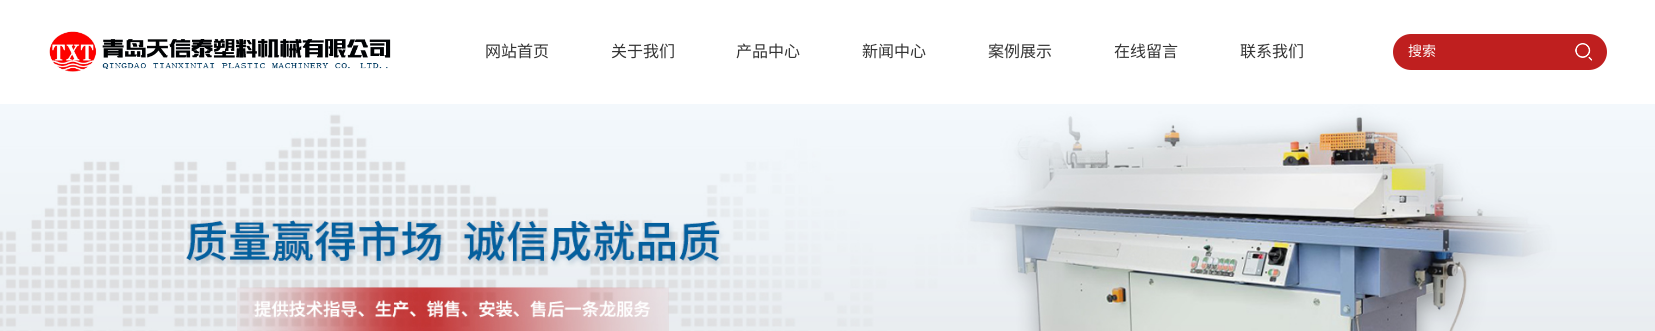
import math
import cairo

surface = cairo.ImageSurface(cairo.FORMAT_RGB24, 1655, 331)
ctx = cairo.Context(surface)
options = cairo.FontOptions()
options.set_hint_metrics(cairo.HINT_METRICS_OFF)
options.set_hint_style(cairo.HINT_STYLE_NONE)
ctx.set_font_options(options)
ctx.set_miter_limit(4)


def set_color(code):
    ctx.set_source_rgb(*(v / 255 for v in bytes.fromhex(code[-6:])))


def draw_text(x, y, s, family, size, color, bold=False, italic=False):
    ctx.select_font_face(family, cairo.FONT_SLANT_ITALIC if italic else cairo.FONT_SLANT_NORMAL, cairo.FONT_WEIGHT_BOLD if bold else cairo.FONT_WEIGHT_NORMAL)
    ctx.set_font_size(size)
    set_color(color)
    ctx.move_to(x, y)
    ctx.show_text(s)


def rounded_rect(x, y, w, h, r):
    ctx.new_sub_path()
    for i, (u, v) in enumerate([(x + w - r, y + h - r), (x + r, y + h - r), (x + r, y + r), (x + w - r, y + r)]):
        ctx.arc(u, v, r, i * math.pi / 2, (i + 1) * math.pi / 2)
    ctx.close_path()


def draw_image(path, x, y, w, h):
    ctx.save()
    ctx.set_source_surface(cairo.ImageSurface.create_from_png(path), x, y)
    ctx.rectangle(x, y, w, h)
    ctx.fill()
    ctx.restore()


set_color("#ffffff")
ctx.paint()
draw_image("assets/img1.png", 49, 31, 342, 41)
draw_text(485, 57, "网站首页", "Noto Sans CJK SC", 16, "#333333")
draw_text(611, 57, "关于我们", "Noto Sans CJK SC", 16, "#333333")
draw_text(736, 57, "产品中心", "Noto Sans CJK SC", 16, "#333333")
draw_text(862, 57, "新闻中心", "Noto Sans CJK SC", 16, "#333333")
draw_text(988, 57, "案例展示", "Noto Sans CJK SC", 16, "#333333")
draw_text(1114, 57, "在线留言", "Noto Sans CJK SC", 16, "#333333")
draw_text(1240, 57, "联系我们", "Noto Sans CJK SC", 16, "#333333")
set_color("#bf1f1f")
rounded_rect(1393, 34, 214, 36, 18)
ctx.fill()
draw_text(1408, 56, "搜索", "Noto Sans CJK SC", 14, "#ffffff")
draw_image("assets/img2.png", 1575, 43, 17, 18)
draw_image("assets/img3.png", 0, 104, 1655, 227)
surface.write_to_png("output.png")
